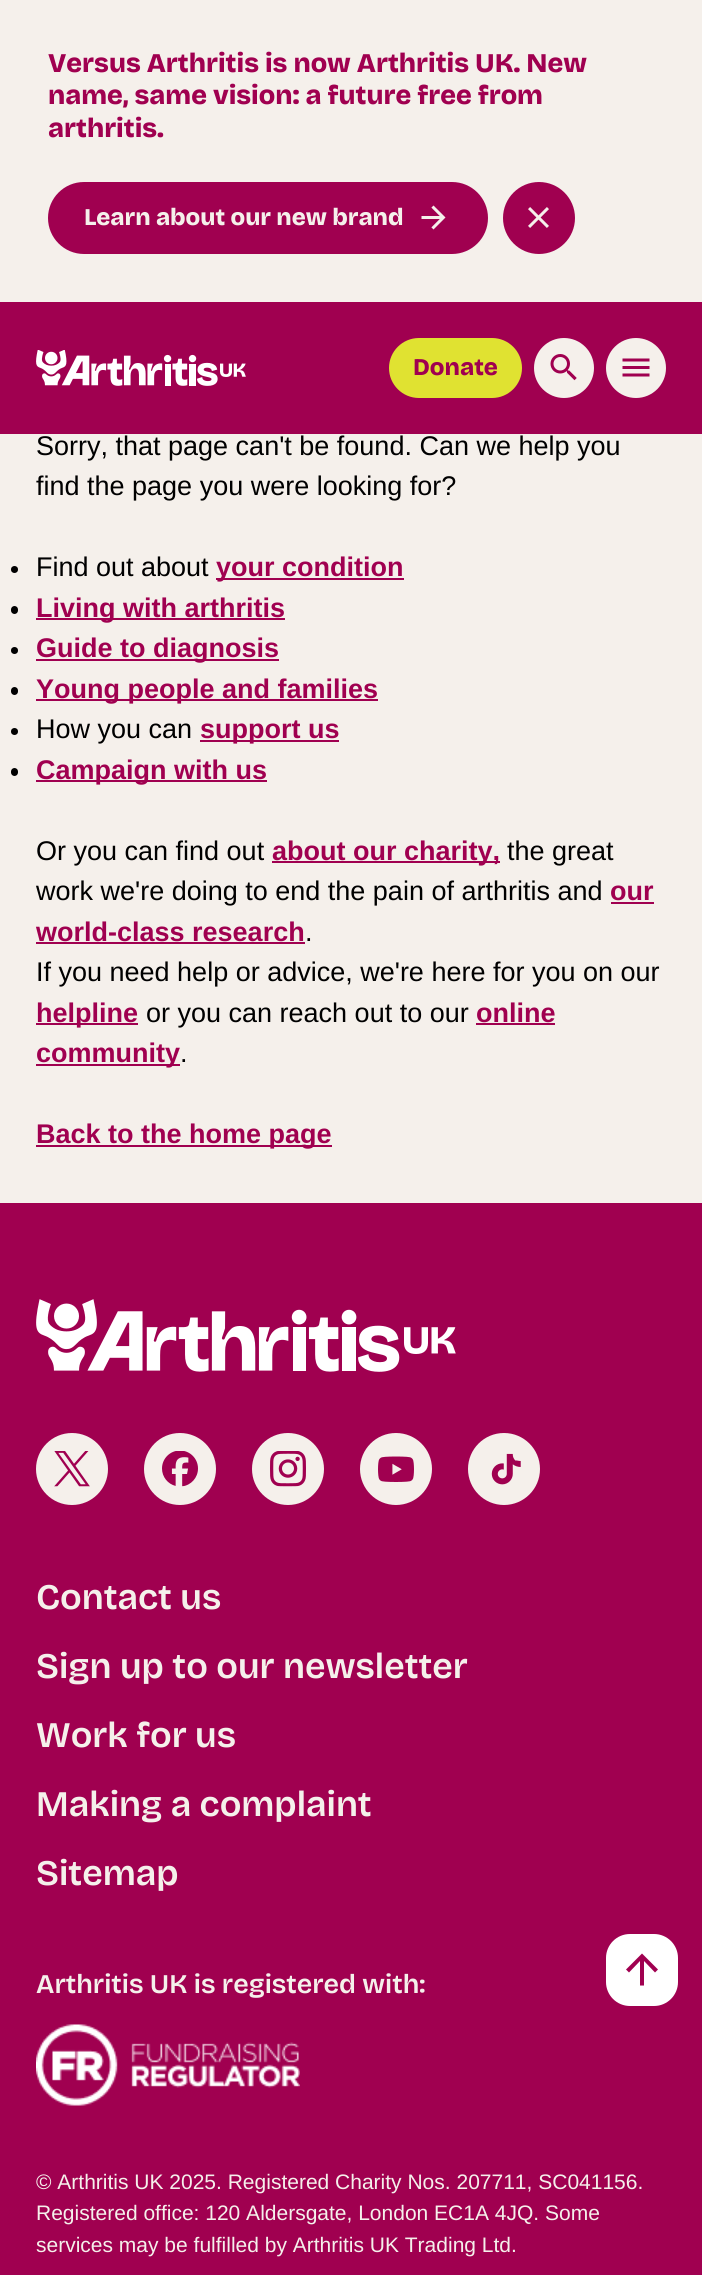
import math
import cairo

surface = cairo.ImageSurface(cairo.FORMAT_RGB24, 702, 2275)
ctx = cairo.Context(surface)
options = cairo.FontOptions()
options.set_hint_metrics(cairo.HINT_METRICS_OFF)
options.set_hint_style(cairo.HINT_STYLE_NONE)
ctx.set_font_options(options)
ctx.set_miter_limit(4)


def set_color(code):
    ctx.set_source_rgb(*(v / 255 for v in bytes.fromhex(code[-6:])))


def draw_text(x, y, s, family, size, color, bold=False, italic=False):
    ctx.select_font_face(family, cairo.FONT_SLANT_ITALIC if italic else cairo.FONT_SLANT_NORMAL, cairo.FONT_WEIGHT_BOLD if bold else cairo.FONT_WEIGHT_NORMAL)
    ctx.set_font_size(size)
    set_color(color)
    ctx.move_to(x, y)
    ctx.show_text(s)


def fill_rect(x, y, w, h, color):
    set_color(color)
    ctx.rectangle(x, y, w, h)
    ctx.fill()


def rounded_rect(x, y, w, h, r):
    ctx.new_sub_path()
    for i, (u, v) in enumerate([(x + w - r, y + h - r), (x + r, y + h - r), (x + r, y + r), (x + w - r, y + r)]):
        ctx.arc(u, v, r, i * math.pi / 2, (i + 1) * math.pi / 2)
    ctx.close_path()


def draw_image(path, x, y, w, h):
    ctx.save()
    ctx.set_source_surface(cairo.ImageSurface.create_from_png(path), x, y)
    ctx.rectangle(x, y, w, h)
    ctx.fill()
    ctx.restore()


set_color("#f5f0eb")
ctx.paint()
fill_rect(0, 302, 702, 132, "#a00050")
draw_text(48, 72, "Versus Arthritis is now Arthritis UK. New", "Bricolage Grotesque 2 ExtraBold", 27, "#a00050")
draw_text(48, 104, "name, same vision: a future free from", "Bricolage Grotesque 2 ExtraBold", 27, "#a00050")
draw_text(48, 137, "arthritis.", "Bricolage Grotesque 2 ExtraBold", 27, "#a00050")
rounded_rect(48, 182, 440, 72, 36)
ctx.fill()
draw_text(84, 225, "Learn about our new brand", "Bricolage Grotesque ExtraBold", 24, "#f5f0eb")
draw_image("assets/img1.png", 421, 205, 25, 25)
set_color("#a00050")
ctx.arc(539, 218, 36, 0, 2 * math.pi)
ctx.fill()
draw_image("assets/img2.png", 528, 207, 21, 21)
draw_image("assets/img3.png", 36, 350, 210, 36)
set_color("#e0e231")
rounded_rect(389, 338, 133, 60, 30)
ctx.fill()
draw_text(413, 375, "Donate", "Bricolage Grotesque ExtraBold", 24, "#a00050")
set_color("#f5f0eb")
ctx.new_path()
ctx.arc(564, 368, 30, 0, 2 * math.pi)
ctx.fill()
draw_image("assets/img4.png", 550, 354, 27, 27)
ctx.arc(636, 368, 30, 0, 2 * math.pi)
ctx.fill()
draw_image("assets/img5.png", 622, 358, 28, 19)
draw_text(36, 455, "Sorry, that page can't be found. Can we help you", "Liberation Sans", 27, "#000000")
draw_text(36, 495, "find the page you were looking for?", "Liberation Sans", 27, "#000000")
ctx.new_path()
ctx.arc(14.5, 569.5, 3.5, 0, 2 * math.pi)
ctx.fill()
draw_text(36, 576, "Find out about", "Liberation Sans", 27, "#000000")
fill_rect(216, 578, 188, 2, "#a00050")
draw_text(216, 576, "your condition", "Liberation Sans", 27, "#a00050", bold=True)
set_color("#000000")
rounded_rect(11, 606, 7, 8, 3.5)
ctx.fill()
fill_rect(36, 618, 249, 2, "#a00050")
draw_text(36, 617, "Living with arthritis", "Liberation Sans", 27, "#a00050", bold=True)
set_color("#000000")
ctx.new_path()
ctx.arc(14.5, 650.5, 3.5, 0, 2 * math.pi)
ctx.fill()
fill_rect(36, 659, 243, 2, "#a00050")
draw_text(36, 657, "Guide to diagnosis", "Liberation Sans", 27, "#a00050", bold=True)
set_color("#000000")
rounded_rect(11, 687, 7, 8, 3.5)
ctx.fill()
fill_rect(36, 699, 342, 2, "#a00050")
draw_text(36, 698, "Young people and families", "Liberation Sans", 27, "#a00050", bold=True)
set_color("#000000")
ctx.new_path()
ctx.arc(14.5, 731.5, 3.5, 0, 2 * math.pi)
ctx.fill()
draw_text(36, 738, "How you can", "Liberation Sans", 27, "#000000")
fill_rect(200, 740, 139, 2, "#a00050")
draw_text(200, 738, "support us", "Liberation Sans", 27, "#a00050", bold=True)
set_color("#000000")
rounded_rect(11, 768, 7, 8, 3.5)
ctx.fill()
fill_rect(36, 780, 231, 2, "#a00050")
draw_text(36, 779, "Campaign with us", "Liberation Sans", 27, "#a00050", bold=True)
draw_text(36, 860, "Or you can find out", "Liberation Sans", 27, "#000000")
fill_rect(272, 861, 228, 2, "#a00050")
draw_text(272, 860, "about our charity,", "Liberation Sans", 27, "#a00050", bold=True)
draw_text(507, 860, "the great", "Liberation Sans", 27, "#000000")
draw_text(36, 900, "work we're doing to end the pain of arthritis and", "Liberation Sans", 27, "#000000")
draw_text(610, 900, "our", "Liberation Sans", 27, "#a00050", bold=True)
fill_rect(611, 902, 43, 2, "#a00050")
draw_text(36, 941, "world-class research", "Liberation Sans", 27, "#a00050", bold=True)
fill_rect(36, 942, 269, 2, "#a00050")
draw_text(305, 941, ".", "Liberation Sans", 27, "#000000")
draw_text(36, 981, "If you need help or advice, we're here for you on our", "Liberation Sans", 27, "#000000")
fill_rect(36, 1023, 102, 2, "#a00050")
draw_text(36, 1022, "helpline", "Liberation Sans", 27, "#a00050", bold=True)
draw_text(146, 1022, "or you can reach out to our", "Liberation Sans", 27, "#000000")
draw_text(476, 1022, "online", "Liberation Sans", 27, "#a00050", bold=True)
fill_rect(476, 1023, 79, 2, "#a00050")
fill_rect(36, 1064, 144, 2, "#a00050")
draw_text(36, 1062, "community", "Liberation Sans", 27, "#a00050", bold=True)
draw_text(180, 1062, ".", "Liberation Sans", 27, "#000000")
fill_rect(36, 1145, 296, 2, "#a00050")
draw_text(36, 1143, "Back to the home page", "Liberation Sans", 27, "#a00050", bold=True)
fill_rect(0, 1203, 702, 1072, "#a00050")
set_color("#ffffff")
rounded_rect(606, 1934, 72, 72, 24)
ctx.fill()
set_color("#a00050")
ctx.new_path()
ctx.move_to(626, 1969.5)
ctx.line_to(629, 1972.5)
ctx.line_to(640, 1961)
ctx.line_to(640, 1985.5)
ctx.line_to(644, 1985.5)
ctx.line_to(644, 1961)
ctx.line_to(655, 1972.5)
ctx.line_to(658, 1969.5)
ctx.line_to(642, 1953.5)
ctx.close_path()
ctx.fill()
draw_image("assets/img6.png", 36, 1299, 420, 73)
set_color("#f5f0eb")
ctx.arc(72, 1469, 36, 0, 2 * math.pi)
ctx.fill()
draw_image("assets/img7.png", 54, 1451, 36, 36)
ctx.arc(180, 1469, 36, 0, 2 * math.pi)
ctx.fill()
draw_image("assets/img8.png", 162, 1451, 36, 36)
ctx.arc(288, 1469, 36, 0, 2 * math.pi)
ctx.fill()
draw_image("assets/img9.png", 270, 1451, 36, 36)
ctx.arc(396, 1469, 36, 0, 2 * math.pi)
ctx.fill()
draw_image("assets/img10.png", 378, 1456, 36, 26)
ctx.arc(504, 1469, 36, 0, 2 * math.pi)
ctx.fill()
draw_image("assets/img11.png", 491, 1453, 30, 32)
draw_text(36, 1609, "Contact us", "Bricolage Grotesque SemiBold", 36, "#f5f0eb")
draw_text(36, 1678, "Sign up to our newsletter", "Bricolage Grotesque SemiBold", 36, "#f5f0eb")
draw_text(36, 1747, "Work for us", "Bricolage Grotesque SemiBold", 36, "#f5f0eb")
draw_text(36, 1816, "Making a complaint", "Bricolage Grotesque SemiBold", 36, "#f5f0eb")
draw_text(36, 1885, "Sitemap", "Bricolage Grotesque SemiBold", 36, "#f5f0eb")
draw_text(36, 1993, "Arthritis UK is registered with:", "Bricolage Grotesque 2 SemiBold", 27, "#f5f0eb")
draw_image("assets/img12.png", 36, 2024, 264, 82)
draw_text(36, 2189, "© Arthritis UK 2025. Registered Charity Nos. 207711, SC041156.", "Liberation Sans", 21, "#f5f0eb")
draw_text(36, 2220, "Registered office: 120 Aldersgate, London EC1A 4JQ. Some", "Liberation Sans", 21, "#f5f0eb")
draw_text(36, 2252, "services may be fulfilled by Arthritis UK Trading Ltd.", "Liberation Sans", 21, "#f5f0eb")
surface.write_to_png("output.png")
